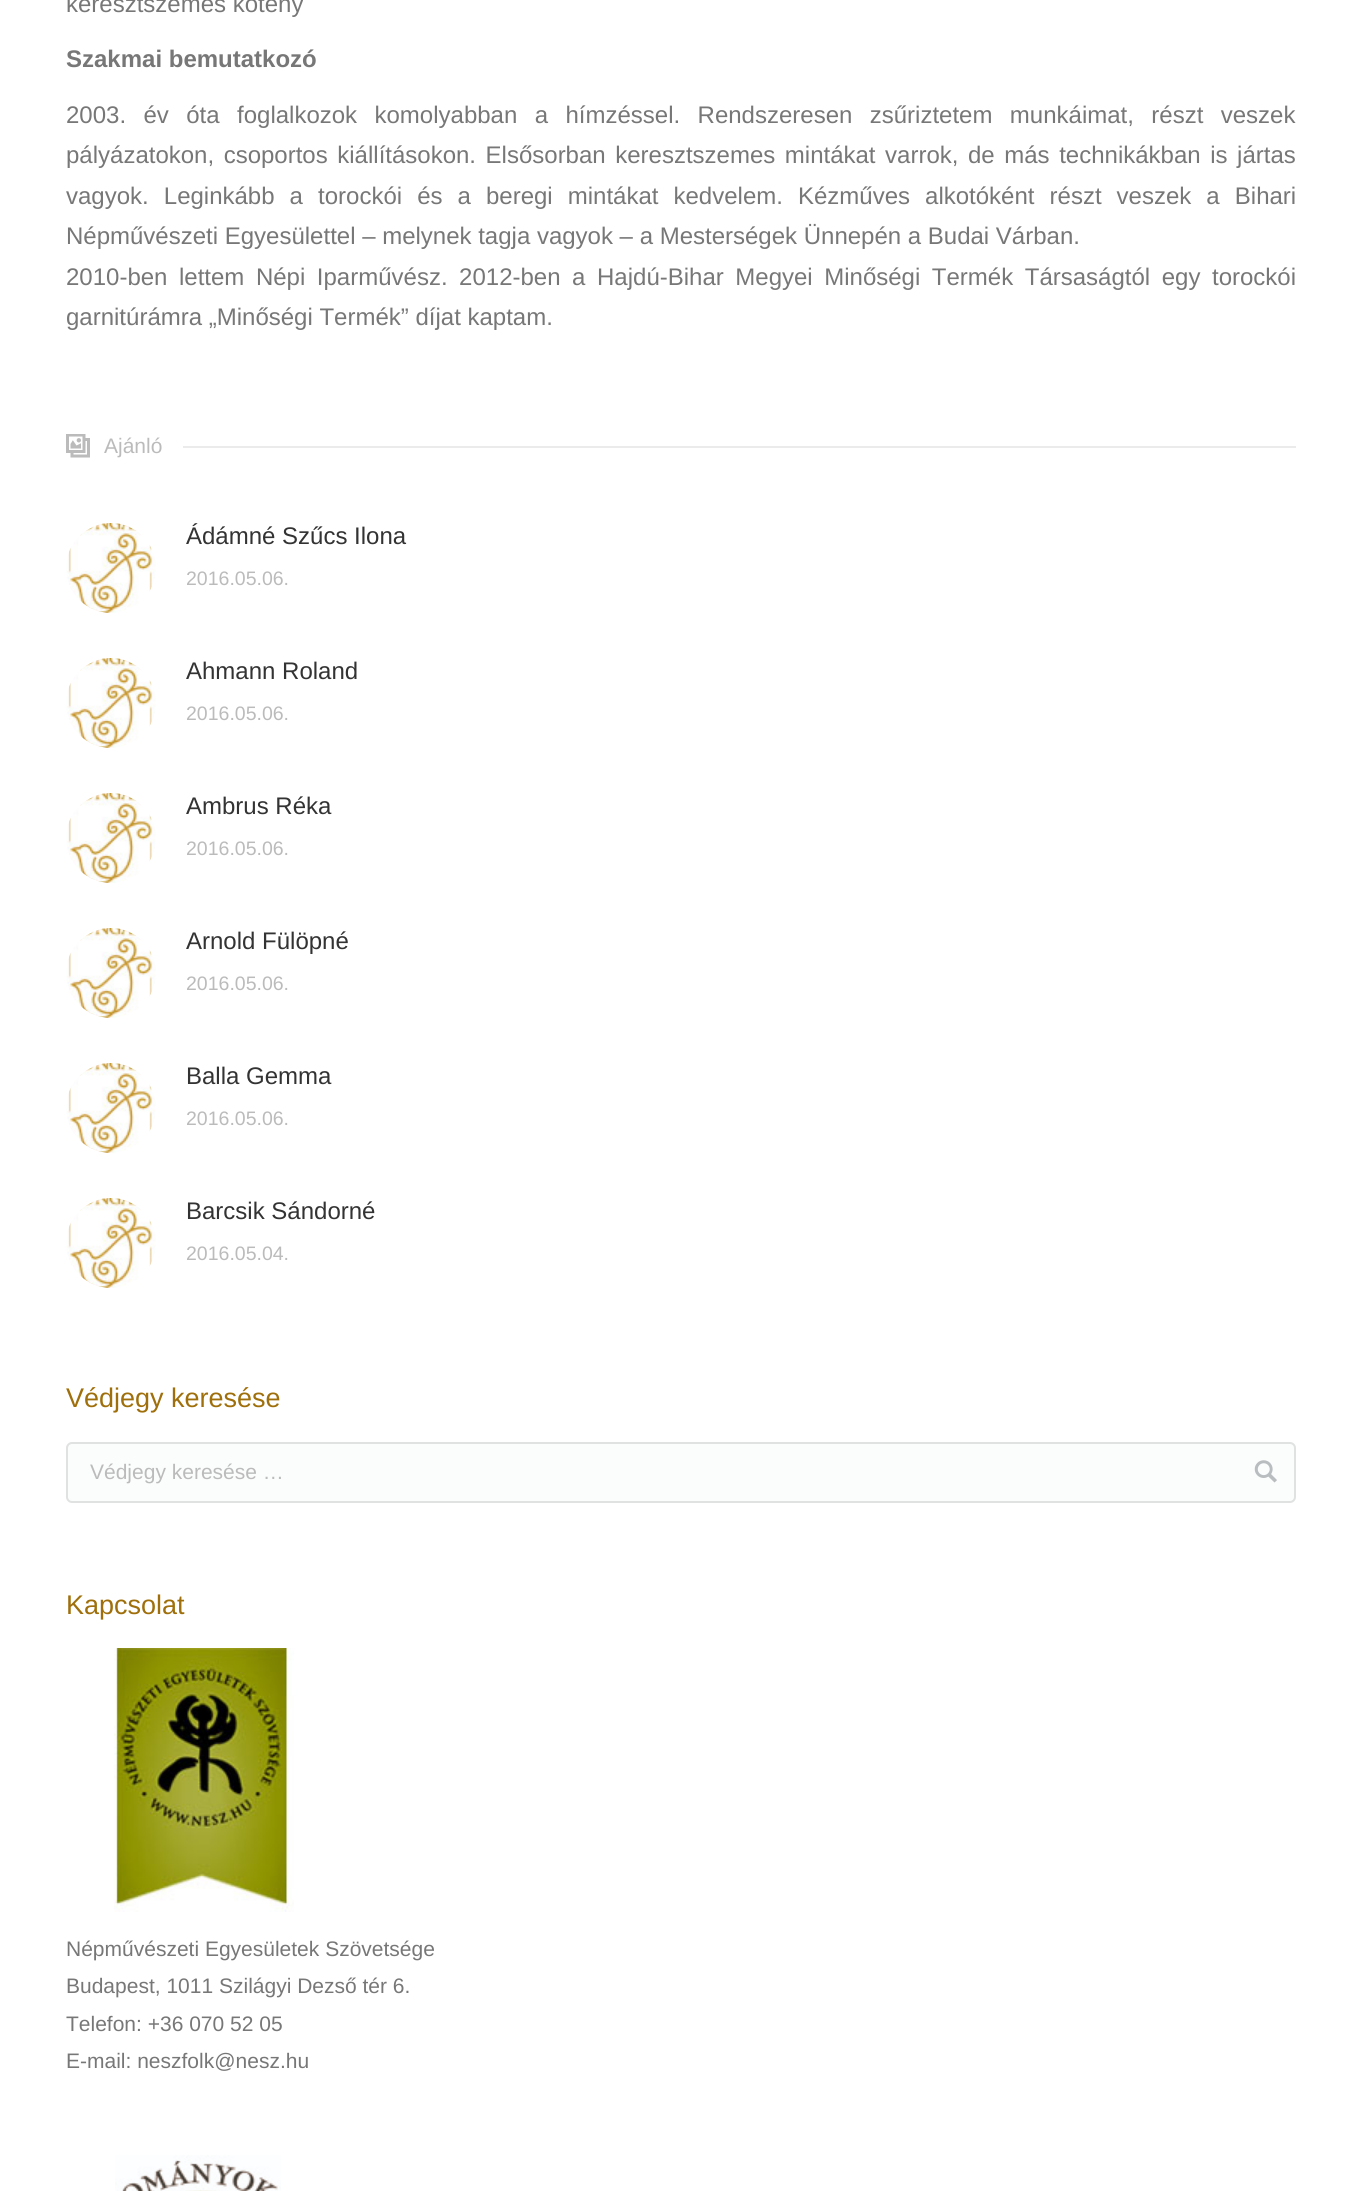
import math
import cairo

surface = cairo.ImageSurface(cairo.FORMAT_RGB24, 1362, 2191)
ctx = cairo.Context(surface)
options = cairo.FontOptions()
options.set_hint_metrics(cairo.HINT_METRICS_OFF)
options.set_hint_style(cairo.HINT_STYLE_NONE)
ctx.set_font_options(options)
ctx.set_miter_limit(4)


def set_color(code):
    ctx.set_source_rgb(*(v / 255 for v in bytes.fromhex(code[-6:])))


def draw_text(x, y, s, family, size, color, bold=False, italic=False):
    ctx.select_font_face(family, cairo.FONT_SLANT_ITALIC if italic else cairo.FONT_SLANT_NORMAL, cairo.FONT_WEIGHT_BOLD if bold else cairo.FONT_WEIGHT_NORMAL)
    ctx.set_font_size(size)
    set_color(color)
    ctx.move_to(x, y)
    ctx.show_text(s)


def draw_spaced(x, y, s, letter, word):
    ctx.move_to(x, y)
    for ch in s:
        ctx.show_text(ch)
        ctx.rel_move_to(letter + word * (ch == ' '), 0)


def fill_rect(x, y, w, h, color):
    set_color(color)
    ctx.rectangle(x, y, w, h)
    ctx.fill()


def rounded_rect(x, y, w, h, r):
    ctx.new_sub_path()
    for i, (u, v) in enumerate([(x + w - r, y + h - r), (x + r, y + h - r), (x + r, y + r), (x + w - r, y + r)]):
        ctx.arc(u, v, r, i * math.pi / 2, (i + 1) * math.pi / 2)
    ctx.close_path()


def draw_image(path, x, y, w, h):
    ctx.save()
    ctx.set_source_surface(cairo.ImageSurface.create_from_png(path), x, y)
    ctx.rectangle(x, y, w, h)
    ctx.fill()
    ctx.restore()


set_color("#ffffff")
ctx.paint()
draw_text(66, 12, "keresztszemes kötény", "Liberation Sans", 24, "#777777")
draw_text(66, 67, "Szakmai bemutatkozó", "Liberation Sans", 24, "#777777", bold=True)
ctx.select_font_face("Liberation Sans")
draw_spaced(66, 123, "2003. év óta foglalkozok komolyabban a hímzéssel. Rendszeresen zsűriztetem munkáimat, részt veszek", 0, 10.75)
draw_spaced(66, 163, "pályázatokon, csoportos kiállításokon. Elsősorban keresztszemes mintákat varrok, de más technikákban is jártas", 0, 2.9)
draw_spaced(66, 204, "vagyok. Leginkább a torockói és a beregi mintákat kedvelem. Kézműves alkotóként részt veszek a Bihari", 0, 8.4)
draw_text(66, 244, "Népművészeti Egyesülettel – melynek tagja vagyok – a Mesterségek Ünnepén a Budai Várban.", "Liberation Sans", 24, "#777777")
draw_spaced(66, 285, "2010-ben lettem Népi Iparművész. 2012-ben a Hajdú-Bihar Megyei Minőségi Termék Társaságtól egy torockói", 0, 4.9)
draw_text(66, 325, "garnitúrámra „Minőségi Termék” díjat kaptam.", "Liberation Sans", 24, "#777777")
draw_image("assets/img1.png", 66, 434, 24, 24)
draw_text(104, 453, "Ajánló", "Liberation Sans", 21, "#bbbbbb")
fill_rect(183, 446, 1113, 2, "#ebebeb")
draw_image("assets/img2.png", 66, 523, 90, 90)
draw_text(186, 544, "Ádámné Szűcs Ilona", "Liberation Sans", 24, "#333333")
draw_text(186, 585, "2016.05.06.", "Liberation Sans", 19.5, "#bbbbbb")
draw_image("assets/img3.png", 66, 658, 90, 90)
draw_text(186, 679, "Ahmann Roland", "Liberation Sans", 24, "#333333")
draw_text(186, 720, "2016.05.06.", "Liberation Sans", 19.5, "#bbbbbb")
draw_image("assets/img4.png", 66, 793, 90, 90)
draw_text(186, 814, "Ambrus Réka", "Liberation Sans", 24, "#333333")
draw_text(186, 855, "2016.05.06.", "Liberation Sans", 19.5, "#bbbbbb")
draw_image("assets/img5.png", 66, 928, 90, 90)
draw_text(186, 949, "Arnold Fülöpné", "Liberation Sans", 24, "#333333")
draw_text(186, 990, "2016.05.06.", "Liberation Sans", 19.5, "#bbbbbb")
draw_image("assets/img2.png", 66, 1063, 90, 90)
draw_text(186, 1084, "Balla Gemma", "Liberation Sans", 24, "#333333")
draw_text(186, 1125, "2016.05.06.", "Liberation Sans", 19.5, "#bbbbbb")
draw_image("assets/img6.png", 66, 1198, 90, 90)
draw_text(186, 1219, "Barcsik Sándorné", "Liberation Sans", 24, "#333333")
draw_text(186, 1260, "2016.05.04.", "Liberation Sans", 19.5, "#bbbbbb")
draw_text(66, 1407, "Védjegy keresése", "Liberation Sans", 27, "#9f6f0b")
set_color("#fbfcfc")
rounded_rect(67, 1443, 1228, 59, 5)
ctx.fill_preserve()
set_color("#e0e1e1")
ctx.stroke()
draw_text(90, 1479, "Védjegy keresése …", "Liberation Sans", 21, "#bbbbbb")
draw_image("assets/img7.png", 1254, 1460, 23, 23)
draw_text(66, 1614, "Kapcsolat", "Liberation Sans", 27, "#9f6f0b")
draw_image("assets/img8.png", 114, 1648, 180, 264)
draw_text(66, 1956, "Népművészeti Egyesületek Szövetsége", "Liberation Sans", 21, "#777777")
draw_text(66, 1993, "Budapest, 1011 Szilágyi Dezső tér 6.", "Liberation Sans", 21, "#777777")
draw_text(66, 2031, "Telefon: +36 070 52 05", "Liberation Sans", 21, "#777777")
draw_text(66, 2068, "E-mail: neszfolk@nesz.hu", "Liberation Sans", 21, "#777777")
draw_image("assets/img9.png", 115, 2155, 166, 36)
surface.write_to_png("output.png")
